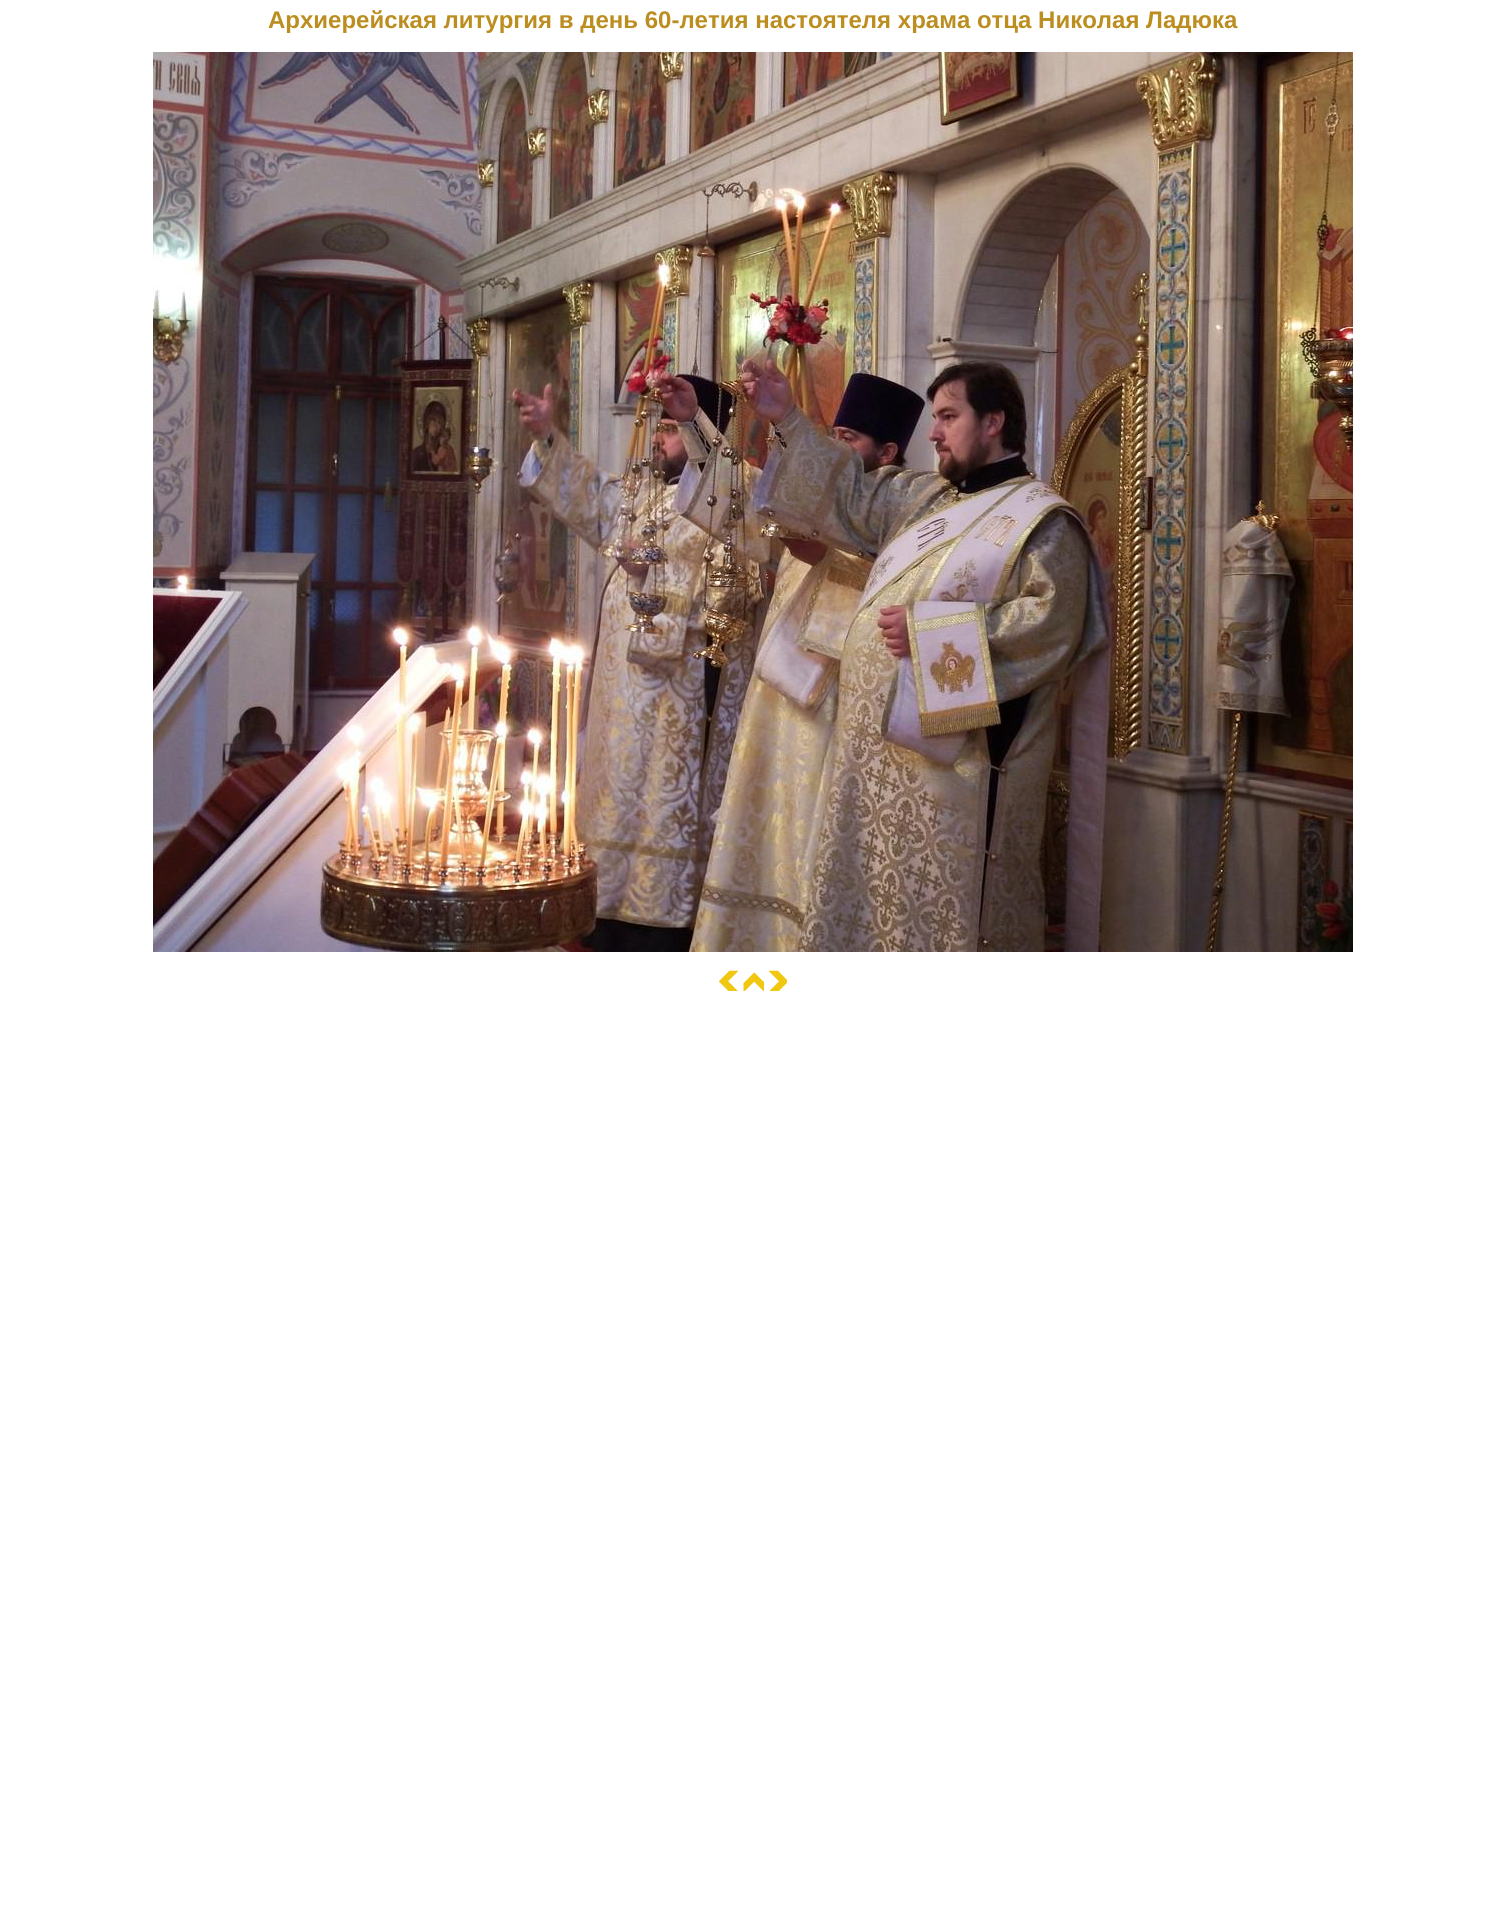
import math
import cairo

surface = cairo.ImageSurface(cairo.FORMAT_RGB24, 1506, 1924)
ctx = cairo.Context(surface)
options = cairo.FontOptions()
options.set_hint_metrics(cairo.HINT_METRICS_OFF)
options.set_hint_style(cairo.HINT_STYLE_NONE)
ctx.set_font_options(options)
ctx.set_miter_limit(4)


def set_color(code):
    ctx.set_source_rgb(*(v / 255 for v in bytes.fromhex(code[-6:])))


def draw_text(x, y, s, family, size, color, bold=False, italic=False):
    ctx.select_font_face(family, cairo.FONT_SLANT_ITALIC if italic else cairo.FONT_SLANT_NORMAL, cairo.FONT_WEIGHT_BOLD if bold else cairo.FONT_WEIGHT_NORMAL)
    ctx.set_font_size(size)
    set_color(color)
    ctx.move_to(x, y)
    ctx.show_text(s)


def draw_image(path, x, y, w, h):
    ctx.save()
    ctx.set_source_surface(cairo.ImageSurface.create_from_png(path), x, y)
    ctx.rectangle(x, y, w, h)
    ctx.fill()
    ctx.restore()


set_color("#ffffff")
ctx.paint()
draw_text(268, 28, "Архиерейская литургия в день 60-летия настоятеля храма отца Николая Ладюка", "Liberation Sans", 24, "#bc8d1f", bold=True)
draw_image("assets/img1.png", 153, 52, 1200, 900)
draw_image("assets/img2.png", 719, 970, 19, 21)
draw_image("assets/img3.png", 743, 972, 21, 19)
draw_image("assets/img4.png", 768, 970, 19, 21)
surface.write_to_png("output.png")
